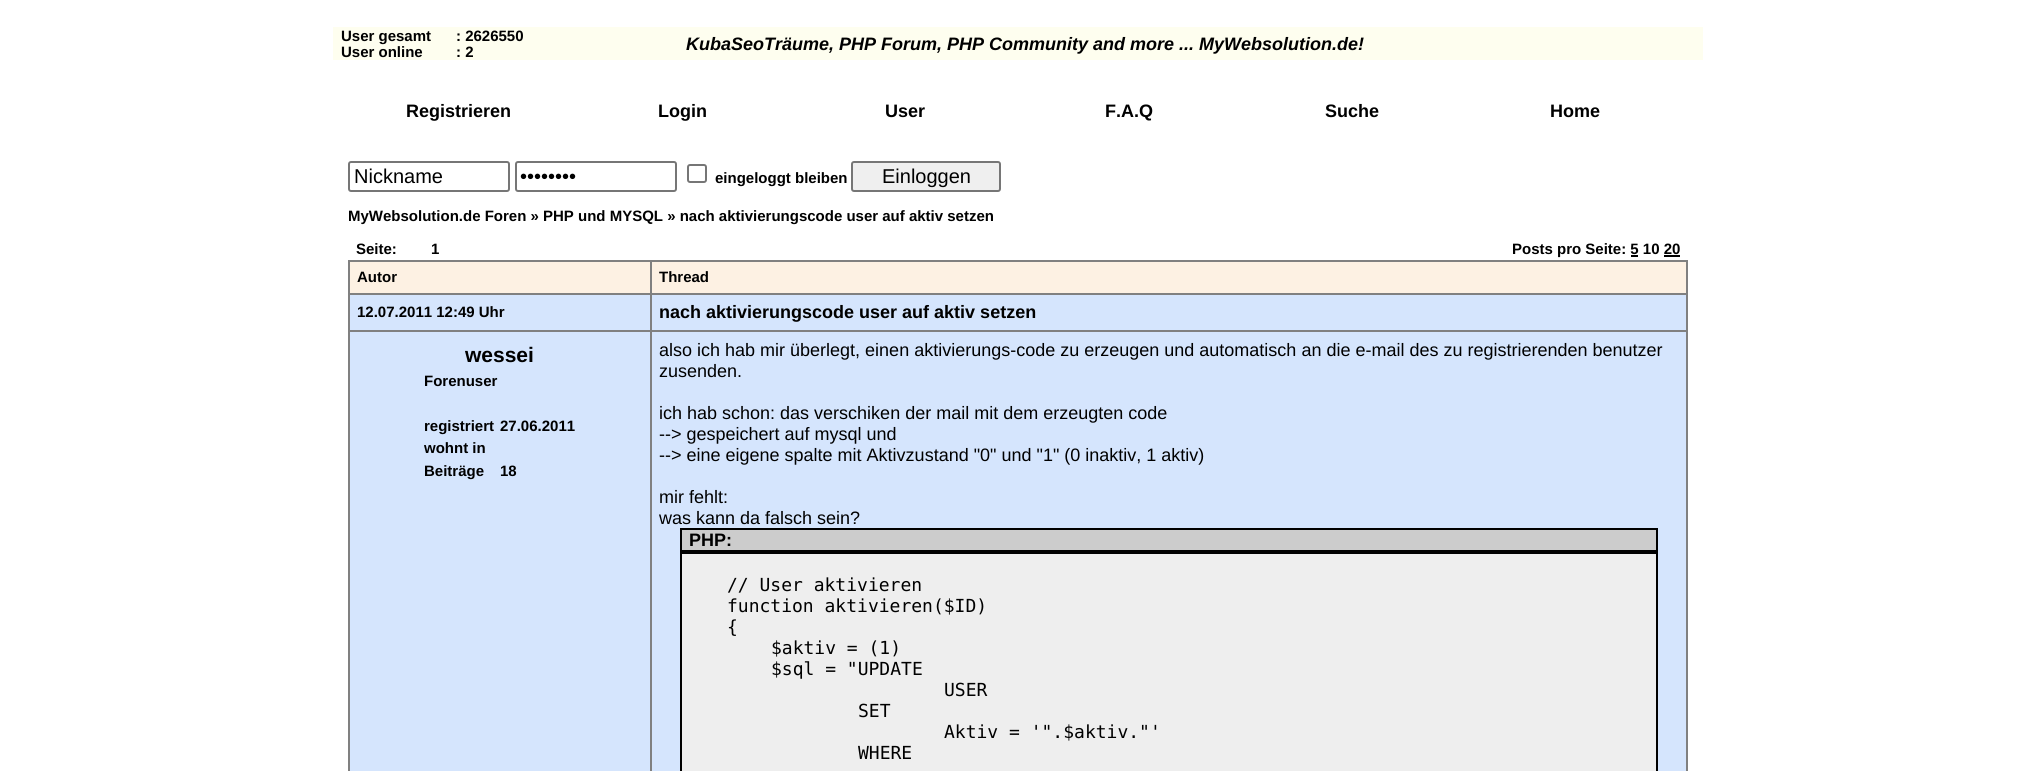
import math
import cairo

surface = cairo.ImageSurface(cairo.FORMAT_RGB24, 2035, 771)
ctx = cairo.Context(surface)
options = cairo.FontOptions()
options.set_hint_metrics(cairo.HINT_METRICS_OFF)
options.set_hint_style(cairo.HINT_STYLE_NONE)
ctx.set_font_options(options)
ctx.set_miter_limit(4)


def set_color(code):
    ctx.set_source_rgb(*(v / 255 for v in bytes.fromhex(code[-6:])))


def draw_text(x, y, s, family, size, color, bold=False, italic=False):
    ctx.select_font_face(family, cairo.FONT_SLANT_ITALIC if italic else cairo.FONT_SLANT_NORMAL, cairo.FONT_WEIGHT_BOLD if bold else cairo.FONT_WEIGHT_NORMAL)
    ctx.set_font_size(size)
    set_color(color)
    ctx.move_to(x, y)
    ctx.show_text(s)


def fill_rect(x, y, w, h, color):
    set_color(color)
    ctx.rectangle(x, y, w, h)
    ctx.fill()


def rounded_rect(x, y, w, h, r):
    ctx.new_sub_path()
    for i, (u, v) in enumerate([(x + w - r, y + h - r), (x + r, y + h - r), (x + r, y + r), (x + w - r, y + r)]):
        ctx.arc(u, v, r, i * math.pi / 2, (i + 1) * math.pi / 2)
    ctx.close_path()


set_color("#ffffff")
ctx.paint()
fill_rect(333, 27, 1370, 33, "#fefeef")
draw_text(341, 41, "User gesamt", "Liberation Sans", 15, "#000000", bold=True)
draw_text(456, 41, ": 2626550", "Liberation Sans", 15, "#000000", bold=True)
draw_text(341, 57, "User online", "Liberation Sans", 15, "#000000", bold=True)
draw_text(456, 57, ": 2", "Liberation Sans", 15, "#000000", bold=True)
draw_text(686, 50, "KubaSeoTräume, PHP Forum, PHP Community and more ... MyWebsolution.de!", "Liberation Sans", 18, "#000000", bold=True, italic=True)
draw_text(406, 117, "Registrieren", "Liberation Sans", 18, "#000000", bold=True)
draw_text(658, 117, "Login", "Liberation Sans", 18, "#000000", bold=True)
draw_text(885, 117, "User", "Liberation Sans", 18, "#000000", bold=True)
draw_text(1105, 117, "F.A.Q", "Liberation Sans", 18, "#000000", bold=True)
draw_text(1325, 117, "Suche", "Liberation Sans", 18, "#000000", bold=True)
draw_text(1550, 117, "Home", "Liberation Sans", 18, "#000000", bold=True)
rounded_rect(349, 162, 160, 29, 2)
set_color("#767676")
ctx.stroke()
draw_text(354, 183, "Nickname", "Liberation Sans", 20, "#000000")
rounded_rect(516, 162, 160, 29, 2)
set_color("#767676")
ctx.stroke()
draw_text(520, 183, "••••••••", "Liberation Sans", 20, "#000000")
rounded_rect(688, 165, 18, 17, 2)
set_color("#767676")
ctx.stroke()
draw_text(715, 183, "eingeloggt bleiben", "Liberation Sans", 15, "#000000", bold=True)
set_color("#efefef")
rounded_rect(852, 162, 148, 29, 2)
ctx.fill_preserve()
set_color("#767676")
ctx.stroke()
draw_text(882, 183, "Einloggen", "Liberation Sans", 20, "#000000")
draw_text(348, 221, "MyWebsolution.de Foren » PHP und MYSQL » nach aktivierungscode user auf aktiv setzen", "Liberation Sans", 15, "#000000", bold=True)
draw_text(356, 254, "Seite:", "Liberation Sans", 15, "#000000", bold=True)
draw_text(431, 254, "1", "Liberation Sans", 15, "#000000", bold=True)
draw_text(1512, 254, "Posts pro Seite: 5 10 20", "Liberation Sans", 15, "#000000", bold=True)
fill_rect(1631, 255, 7, 2, "#000000")
fill_rect(1664, 255, 16, 2, "#000000")
fill_rect(348, 260, 1340, 2, "#808080")
fill_rect(1686, 260, 2, 511, "#808080")
fill_rect(348, 260, 2, 511, "#808080")
fill_rect(350, 262, 300, 31, "#fdf1e3")
draw_text(357, 282, "Autor", "Liberation Sans", 15, "#000000", bold=True)
fill_rect(652, 262, 1034, 31, "#fdf1e3")
fill_rect(650, 293, 1038, 2, "#808080")
fill_rect(350, 295, 1336, 35, "#d5e5fd")
fill_rect(650, 330, 1038, 2, "#808080")
fill_rect(350, 332, 1336, 439, "#d5e5fd")
fill_rect(650, 330, 2, 441, "#808080")
fill_rect(348, 330, 303, 2, "#808080")
fill_rect(650, 293, 2, 39, "#808080")
fill_rect(348, 293, 303, 2, "#808080")
fill_rect(650, 260, 2, 34, "#808080")
draw_text(659, 282, "Thread", "Liberation Sans", 15, "#000000", bold=True)
draw_text(357, 317, "12.07.2011 12:49 Uhr", "Liberation Sans", 15, "#000000", bold=True)
draw_text(659, 318, "nach aktivierungscode user auf aktiv setzen", "Liberation Sans", 18, "#000000", bold=True)
draw_text(465, 362, "wessei", "Liberation Sans", 21, "#000000", bold=True)
draw_text(424, 386, "Forenuser", "Liberation Sans", 15, "#000000", bold=True)
draw_text(424, 431, "registriert", "Liberation Sans", 15, "#000000", bold=True)
draw_text(500, 431, "27.06.2011", "Liberation Sans", 15, "#000000", bold=True)
draw_text(424, 453, "wohnt in", "Liberation Sans", 15, "#000000", bold=True)
draw_text(424, 476, "Beiträge", "Liberation Sans", 15, "#000000", bold=True)
draw_text(500, 476, "18", "Liberation Sans", 15, "#000000", bold=True)
draw_text(659, 356, "also ich hab mir überlegt, einen aktivierungs-code zu erzeugen und automatisch an die e-mail des zu registrierenden benutzer", "Liberation Sans", 18, "#000000")
draw_text(659, 377, "zusenden.", "Liberation Sans", 18, "#000000")
draw_text(659, 419, "ich hab schon: das verschiken der mail mit dem erzeugten code", "Liberation Sans", 18, "#000000")
draw_text(659, 440, "--> gespeichert auf mysql und", "Liberation Sans", 18, "#000000")
draw_text(659, 461, "--> eine eigene spalte mit Aktivzustand \"0\" und \"1\" (0 inaktiv, 1 aktiv)", "Liberation Sans", 18, "#000000")
draw_text(659, 503, "mir fehlt:", "Liberation Sans", 18, "#000000")
draw_text(659, 524, "was kann da falsch sein?", "Liberation Sans", 18, "#000000")
set_color("#cccccc")
ctx.rectangle(681, 529, 976, 22)
ctx.fill_preserve()
set_color("#000000")
ctx.stroke()
draw_text(689, 546, "PHP:", "Liberation Sans", 18, "#000000", bold=True)
set_color("#eeeeee")
ctx.rectangle(681, 553, 976, 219)
ctx.fill_preserve()
set_color("#000000")
ctx.stroke()
draw_text(727, 591, "// User aktivieren", "DejaVu Sans Mono", 18, "#000000")
draw_text(727, 612, "function aktivieren($ID)", "DejaVu Sans Mono", 18, "#000000")
draw_text(727, 633, "{", "DejaVu Sans Mono", 18, "#000000")
draw_text(771, 654, "$aktiv = (1)", "DejaVu Sans Mono", 18, "#000000")
draw_text(771, 675, "$sql = \"UPDATE", "DejaVu Sans Mono", 18, "#000000")
draw_text(944, 696, "USER", "DejaVu Sans Mono", 18, "#000000")
draw_text(858, 717, "SET", "DejaVu Sans Mono", 18, "#000000")
draw_text(944, 738, "Aktiv = '\".$aktiv.\"'", "DejaVu Sans Mono", 18, "#000000")
draw_text(858, 759, "WHERE", "DejaVu Sans Mono", 18, "#000000")
surface.write_to_png("output.png")
